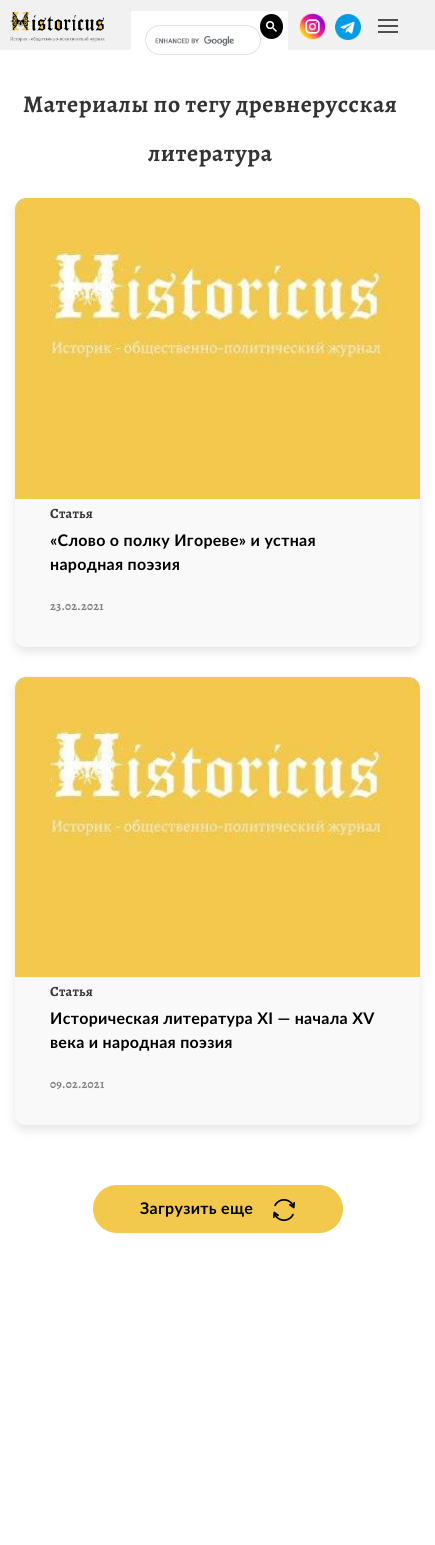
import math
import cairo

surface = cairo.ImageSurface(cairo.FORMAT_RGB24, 435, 1545)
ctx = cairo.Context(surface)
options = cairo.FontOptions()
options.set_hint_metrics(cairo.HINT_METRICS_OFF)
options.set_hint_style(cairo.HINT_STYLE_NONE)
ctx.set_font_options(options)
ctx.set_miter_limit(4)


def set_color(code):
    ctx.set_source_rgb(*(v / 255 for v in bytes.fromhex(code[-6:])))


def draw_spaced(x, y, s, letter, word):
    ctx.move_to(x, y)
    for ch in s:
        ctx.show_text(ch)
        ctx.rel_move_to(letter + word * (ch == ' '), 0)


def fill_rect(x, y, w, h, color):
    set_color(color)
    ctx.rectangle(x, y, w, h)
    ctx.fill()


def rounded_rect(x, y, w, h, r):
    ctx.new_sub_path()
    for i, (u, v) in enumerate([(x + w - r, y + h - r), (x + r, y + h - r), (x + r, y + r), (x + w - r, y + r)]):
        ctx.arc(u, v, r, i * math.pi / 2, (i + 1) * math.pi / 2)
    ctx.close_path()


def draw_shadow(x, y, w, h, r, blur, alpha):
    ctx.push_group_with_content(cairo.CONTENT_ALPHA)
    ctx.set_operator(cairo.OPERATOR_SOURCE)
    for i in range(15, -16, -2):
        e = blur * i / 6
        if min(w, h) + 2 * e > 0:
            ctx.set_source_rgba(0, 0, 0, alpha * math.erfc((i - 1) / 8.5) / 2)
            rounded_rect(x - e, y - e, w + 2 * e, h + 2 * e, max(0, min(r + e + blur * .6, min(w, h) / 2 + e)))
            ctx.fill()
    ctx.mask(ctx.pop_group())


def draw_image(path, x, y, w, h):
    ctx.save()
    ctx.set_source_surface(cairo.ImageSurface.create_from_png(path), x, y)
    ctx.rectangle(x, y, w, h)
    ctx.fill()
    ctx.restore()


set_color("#ffffff")
ctx.paint()
fill_rect(0, 0, 435, 50, "#f1f1f1")
draw_image("assets/img1.png", 10, 11, 95, 31)
fill_rect(131, 11, 157, 39, "#ffffff")
rounded_rect(145.5, 25.5, 115, 29, 14.5)
set_color("#dfe1e5")
ctx.set_line_width(1)
ctx.stroke()
draw_image("assets/img2.png", 155, 36, 79, 10)
set_color("#000000")
ctx.new_path()
ctx.move_to(271.5, 14)
ctx.curve_to(278, 14, 283, 19.5, 283, 26.5)
ctx.curve_to(283, 33.5, 278, 39, 271.5, 39)
ctx.curve_to(265, 39, 260, 33.5, 260, 26.5)
ctx.curve_to(260, 19.5, 265, 14, 271.5, 14)
ctx.close_path()
ctx.fill()
draw_image("assets/img3.png", 266, 21, 11, 11)
draw_image("assets/img4.png", 299, 13, 27, 27)
draw_image("assets/img5.png", 335, 14, 26, 26)
fill_rect(378, 25, 20, 2, "#4f4f4f")
fill_rect(378, 19, 20, 2, "#4f4f4f")
fill_rect(378, 31, 20, 2, "#4f4f4f")
ctx.select_font_face("Alegreya", cairo.FONT_SLANT_NORMAL, cairo.FONT_WEIGHT_BOLD)
ctx.set_font_size(24)
set_color("#333333")
draw_spaced(23, 112, "Материалы по тегу древнерусская", 0.5, 0)
draw_spaced(148, 161, "литература", 0.5, 0)
set_color("#000000")
draw_shadow(15, 203, 405, 449, 10, 5, 0.1)
set_color("#f9f9f9")
rounded_rect(15, 198, 405, 449, 10)
ctx.fill()
draw_image("assets/img6.png", 15, 198, 405, 301)
ctx.set_font_size(14)
set_color("#333333")
draw_spaced(50, 518, "Статья", 0.25, 0)
ctx.select_font_face("Lato", cairo.FONT_SLANT_NORMAL, cairo.FONT_WEIGHT_BOLD)
ctx.set_font_size(16)
set_color("#000000")
draw_spaced(50, 546, "«Слово о полку Игореве» и устная", 0.3, 0)
draw_spaced(50, 570, "народная поэзия", 0.3, 0)
ctx.select_font_face("Alegreya", cairo.FONT_SLANT_NORMAL, cairo.FONT_WEIGHT_BOLD)
ctx.set_font_size(12)
set_color("#828282")
draw_spaced(50, 610, "23.02.2021", 0.25, 0)
set_color("#000000")
draw_shadow(15, 682, 405, 448, 10, 5, 0.1)
set_color("#f9f9f9")
rounded_rect(15, 677, 405, 448, 10)
ctx.fill()
draw_image("assets/img7.png", 15, 677, 405, 300)
ctx.set_font_size(14)
set_color("#333333")
draw_spaced(50, 996, "Статья", 0.25, 0)
ctx.select_font_face("Lato", cairo.FONT_SLANT_NORMAL, cairo.FONT_WEIGHT_BOLD)
ctx.set_font_size(16)
set_color("#000000")
draw_spaced(50, 1024, "Историческая литература XI — начала XV", 0.3, 0)
draw_spaced(50, 1048, "века и народная поэзия", 0.3, 0)
ctx.select_font_face("Alegreya", cairo.FONT_SLANT_NORMAL, cairo.FONT_WEIGHT_BOLD)
ctx.set_font_size(12)
set_color("#828282")
draw_spaced(50, 1088, "09.02.2021", 0.25, 0)
set_color("#f2c94c")
rounded_rect(93, 1185, 250, 48, 24)
ctx.fill()
ctx.select_font_face("Lato", cairo.FONT_SLANT_NORMAL, cairo.FONT_WEIGHT_BOLD)
ctx.set_font_size(16)
set_color("#000000")
draw_spaced(140, 1214, "Загрузить еще", 0.3, 0)
draw_image("assets/img8.png", 273, 1199, 22, 22)
surface.write_to_png("output.png")
